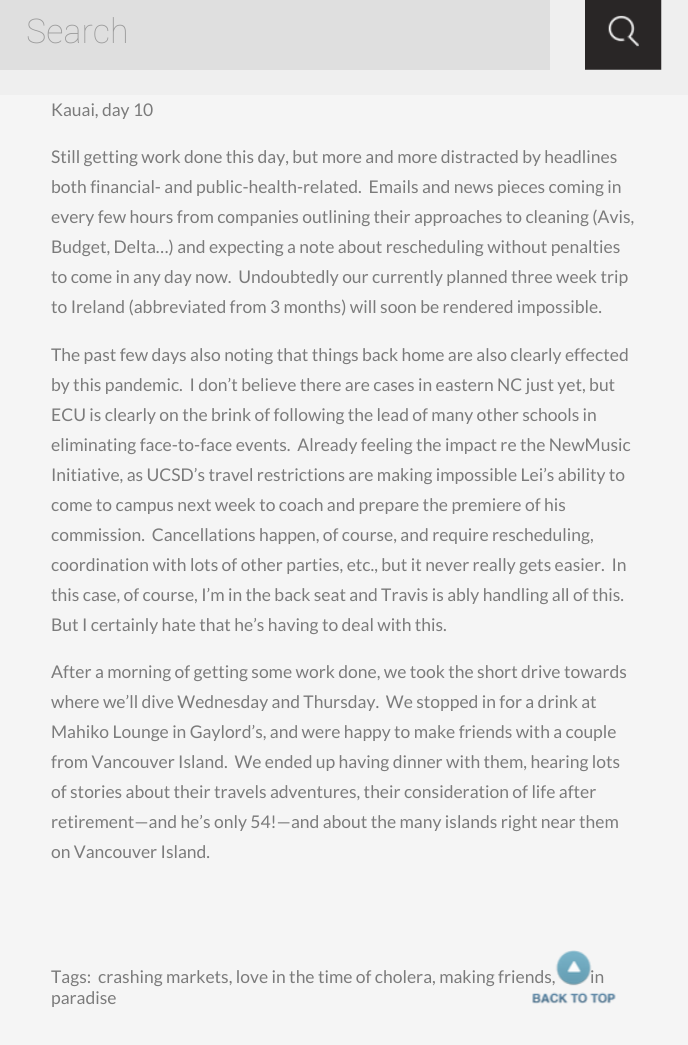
import math
import cairo

surface = cairo.ImageSurface(cairo.FORMAT_RGB24, 688, 1045)
ctx = cairo.Context(surface)
options = cairo.FontOptions()
options.set_hint_metrics(cairo.HINT_METRICS_OFF)
options.set_hint_style(cairo.HINT_STYLE_NONE)
ctx.set_font_options(options)
ctx.set_miter_limit(4)


def set_color(code):
    ctx.set_source_rgb(*(v / 255 for v in bytes.fromhex(code[-6:])))


def draw_text(x, y, s, family, size, color, bold=False, italic=False):
    ctx.select_font_face(family, cairo.FONT_SLANT_ITALIC if italic else cairo.FONT_SLANT_NORMAL, cairo.FONT_WEIGHT_BOLD if bold else cairo.FONT_WEIGHT_NORMAL)
    ctx.set_font_size(size)
    set_color(color)
    ctx.move_to(x, y)
    ctx.show_text(s)


def fill_rect(x, y, w, h, color):
    set_color(color)
    ctx.rectangle(x, y, w, h)
    ctx.fill()


def draw_image(path, x, y, w, h):
    ctx.save()
    ctx.set_source_surface(cairo.ImageSurface.create_from_png(path), x, y)
    ctx.rectangle(x, y, w, h)
    ctx.fill()
    ctx.restore()


set_color("#f5f5f5")
ctx.paint()
fill_rect(0, 0, 688, 95, "#efefef")
fill_rect(0, 0, 550, 70, "#dfdfdf")
draw_text(26, 43, "Search", "Roboto Thin", 34, "#9b9b9b")
draw_image("assets/img1.png", 585, 0, 77, 70)
draw_text(51, 116, "Kauai, day 10", "Lato", 17.5, "#7b7b7b")
draw_text(51, 163, "Still getting work done this day, but more and more distracted by headlines", "Lato", 17.5, "#7b7b7b")
draw_text(51, 193, "both financial- and public-health-related.  Emails and news pieces coming in", "Lato", 17.5, "#7b7b7b")
draw_text(51, 223, "every few hours from companies outlining their approaches to cleaning (Avis,", "Lato", 17.5, "#7b7b7b")
draw_text(51, 253, "Budget, Delta…) and expecting a note about rescheduling without penalties", "Lato", 17.5, "#7b7b7b")
draw_text(51, 283, "to come in any day now.  Undoubtedly our currently planned three week trip", "Lato", 17.5, "#7b7b7b")
draw_text(51, 313, "to Ireland (abbreviated from 3 months) will soon be rendered impossible.", "Lato", 17.5, "#7b7b7b")
draw_text(51, 361, "The past few days also noting that things back home are also clearly effected", "Lato", 17.5, "#7b7b7b")
draw_text(51, 391, "by this pandemic.  I don’t believe there are cases in eastern NC just yet, but", "Lato", 17.5, "#7b7b7b")
draw_text(51, 421, "ECU is clearly on the brink of following the lead of many other schools in", "Lato", 17.5, "#7b7b7b")
draw_text(51, 451, "eliminating face-to-face events.  Already feeling the impact re the NewMusic", "Lato", 17.5, "#7b7b7b")
draw_text(51, 481, "Initiative, as UCSD’s travel restrictions are making impossible Lei’s ability to", "Lato", 17.5, "#7b7b7b")
draw_text(51, 511, "come to campus next week to coach and prepare the premiere of his", "Lato", 17.5, "#7b7b7b")
draw_text(51, 541, "commission.  Cancellations happen, of course, and require rescheduling,", "Lato", 17.5, "#7b7b7b")
draw_text(51, 571, "coordination with lots of other parties, etc., but it never really gets easier.  In", "Lato", 17.5, "#7b7b7b")
draw_text(51, 601, "this case, of course, I’m in the back seat and Travis is ably handling all of this.", "Lato", 17.5, "#7b7b7b")
draw_text(51, 631, "But I certainly hate that he’s having to deal with this.", "Lato", 17.5, "#7b7b7b")
draw_text(51, 678, "After a morning of getting some work done, we took the short drive towards", "Lato", 17.5, "#7b7b7b")
draw_text(51, 708, "where we’ll dive Wednesday and Thursday.  We stopped in for a drink at", "Lato", 17.5, "#7b7b7b")
draw_text(51, 738, "Mahiko Lounge in Gaylord’s, and were happy to make friends with a couple", "Lato", 17.5, "#7b7b7b")
draw_text(51, 768, "from Vancouver Island.  We ended up having dinner with them, hearing lots", "Lato", 17.5, "#7b7b7b")
draw_text(51, 798, "of stories about their travels adventures, their consideration of life after", "Lato", 17.5, "#7b7b7b")
draw_text(51, 828, "retirement—and he’s only 54!—and about the many islands right near them", "Lato", 17.5, "#7b7b7b")
draw_text(51, 858, "on Vancouver Island.", "Lato", 17.5, "#7b7b7b")
draw_text(51, 983, "Tags:", "Lato", 17.5, "#7b7b7b")
draw_text(98, 983, "crashing markets, love in the time of cholera, making friends,", "Lato", 17.5, "#7b7b7b")
draw_text(590, 983, "in", "Lato", 17.5, "#7b7b7b")
draw_text(51, 1004, "paradise", "Lato", 17.5, "#7b7b7b")
draw_image("assets/img2.png", 532, 950, 84, 54)
surface.write_to_png("output.png")
